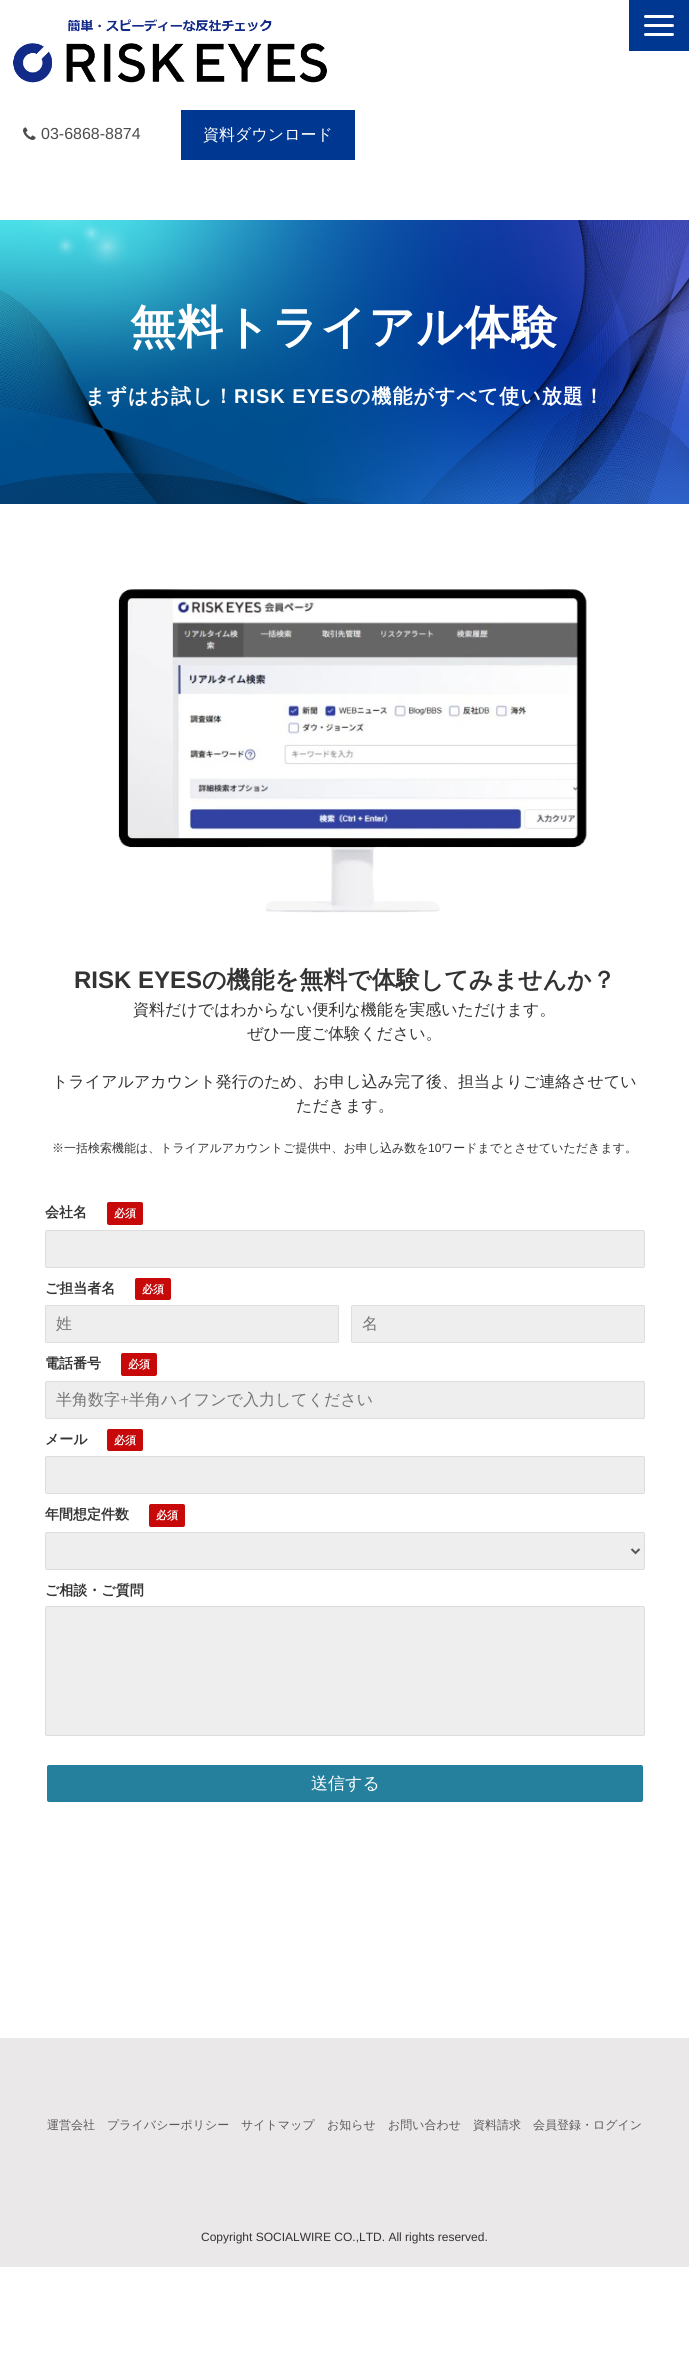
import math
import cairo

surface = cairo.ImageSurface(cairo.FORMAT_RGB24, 689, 2360)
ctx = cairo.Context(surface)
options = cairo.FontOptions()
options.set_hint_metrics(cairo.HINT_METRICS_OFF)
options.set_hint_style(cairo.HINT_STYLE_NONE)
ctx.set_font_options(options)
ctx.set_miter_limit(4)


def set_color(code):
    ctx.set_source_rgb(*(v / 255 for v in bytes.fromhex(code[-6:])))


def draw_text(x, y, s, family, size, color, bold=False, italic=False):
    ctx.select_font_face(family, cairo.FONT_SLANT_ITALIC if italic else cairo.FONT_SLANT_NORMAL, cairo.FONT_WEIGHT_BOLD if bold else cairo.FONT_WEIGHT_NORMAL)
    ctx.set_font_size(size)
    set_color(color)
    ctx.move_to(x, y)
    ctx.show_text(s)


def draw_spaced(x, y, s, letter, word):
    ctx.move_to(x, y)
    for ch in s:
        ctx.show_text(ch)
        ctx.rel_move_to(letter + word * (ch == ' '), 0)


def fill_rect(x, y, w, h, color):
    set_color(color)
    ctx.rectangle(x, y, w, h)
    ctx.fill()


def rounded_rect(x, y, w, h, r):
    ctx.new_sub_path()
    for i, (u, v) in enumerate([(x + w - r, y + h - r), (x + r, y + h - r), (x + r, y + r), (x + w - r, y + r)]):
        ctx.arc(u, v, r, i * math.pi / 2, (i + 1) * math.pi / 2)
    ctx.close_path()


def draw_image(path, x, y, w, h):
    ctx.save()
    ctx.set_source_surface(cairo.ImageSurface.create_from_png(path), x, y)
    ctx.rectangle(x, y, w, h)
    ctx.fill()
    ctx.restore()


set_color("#ffffff")
ctx.paint()
fill_rect(629, 0, 60, 51, "#003791")
set_color("#ffffff")
rounded_rect(644, 15, 30, 3, 1.5)
ctx.fill()
rounded_rect(644, 24, 30, 3, 1.5)
ctx.fill()
rounded_rect(644, 33, 30, 3, 1.5)
ctx.fill()
draw_image("assets/img1.png", 13, 19, 314, 64)
draw_image("assets/img2.png", 23, 127, 13, 13)
draw_text(41, 139, "03-6868-8874", "Liberation Sans", 16, "#4d4d4d")
fill_rect(181, 110, 174, 50, "#003791")
draw_text(203, 140, "資料ダウンロード", "WenQuanYi Zen Hei Medium", 16, "#ffffff")
draw_image("assets/img3.png", 0, 220, 689, 284)
ctx.select_font_face("WenQuanYi Zen Hei", cairo.FONT_SLANT_NORMAL, cairo.FONT_WEIGHT_BOLD)
ctx.set_font_size(46)
draw_spaced(130, 343, "無料トライアル体験", 1, 0)
ctx.set_font_size(20)
draw_spaced(85, 403, "まずはお試し！", 1, 0)
ctx.select_font_face("Liberation Sans", cairo.FONT_SLANT_NORMAL, cairo.FONT_WEIGHT_BOLD)
draw_spaced(234, 403, "RISK EYES", 1, 0)
ctx.select_font_face("WenQuanYi Zen Hei", cairo.FONT_SLANT_NORMAL, cairo.FONT_WEIGHT_BOLD)
draw_spaced(350, 403, "の機能がすべて使い放題！", 1, 0)
draw_image("assets/img4.png", 118, 589, 469, 324)
draw_text(74, 988, "RISK EYES", "Liberation Sans", 24, "#333333", bold=True)
draw_text(202, 988, "の機能を無料で体験してみませんか？", "WenQuanYi Zen Hei", 24, "#333333", bold=True)
draw_text(133, 1015, "資料だけではわからない便利な機能を実感いただけます。", "WenQuanYi Zen Hei Medium", 16, "#333333")
draw_text(247, 1039, "ぜひ一度ご体験ください。", "WenQuanYi Zen Hei Medium", 16, "#333333")
draw_text(52, 1087, "トライアルアカウント発行のため、お申し込み完了後、担当よりご連絡させてい", "WenQuanYi Zen Hei Medium", 16, "#333333")
draw_text(296, 1111, "ただきます。", "WenQuanYi Zen Hei Medium", 16, "#333333")
draw_text(52, 1152, "※一括検索機能は、トライアルアカウントご提供中、お申し込み数を", "WenQuanYi Zen Hei Medium", 12, "#333333")
draw_text(428, 1152, "10", "Liberation Sans", 12, "#333333")
draw_text(441, 1152, "ワードまでとさせていただきます。", "WenQuanYi Zen Hei Medium", 12, "#333333")
draw_text(45, 1217, "会社名", "WenQuanYi Zen Hei", 14, "#333333", bold=True)
set_color("#c70909")
rounded_rect(107, 1202, 36, 23, 2)
ctx.fill()
draw_text(114, 1217, "必須", "WenQuanYi Zen Hei", 11, "#ffffff", bold=True)
set_color("#eeeeee")
rounded_rect(45.5, 1230.5, 599, 37, 1.5)
ctx.fill_preserve()
set_color("#dddddd")
ctx.set_line_width(1)
ctx.stroke()
draw_text(45, 1293, "ご担当者名", "WenQuanYi Zen Hei", 14, "#333333", bold=True)
set_color("#c70909")
rounded_rect(135, 1278, 36, 22, 2)
ctx.fill()
draw_text(142, 1293, "必須", "WenQuanYi Zen Hei", 11, "#ffffff", bold=True)
set_color("#eeeeee")
rounded_rect(45.5, 1305.5, 293, 37, 1.5)
ctx.fill_preserve()
set_color("#dddddd")
ctx.stroke()
draw_text(56, 1329, "姓", "WenQuanYi Zen Hei Medium", 16, "#757575")
set_color("#eeeeee")
rounded_rect(351.5, 1305.5, 293, 37, 1.5)
ctx.fill_preserve()
set_color("#dddddd")
ctx.stroke()
draw_text(362, 1329, "名", "WenQuanYi Zen Hei Medium", 16, "#757575")
draw_text(45, 1368, "電話番号", "WenQuanYi Zen Hei", 14, "#333333", bold=True)
set_color("#c70909")
rounded_rect(121, 1353, 36, 23, 2)
ctx.fill()
draw_text(128, 1368, "必須", "WenQuanYi Zen Hei", 11, "#ffffff", bold=True)
set_color("#eeeeee")
rounded_rect(45.5, 1381.5, 599, 37, 1.5)
ctx.fill_preserve()
set_color("#dddddd")
ctx.stroke()
draw_text(56, 1405, "半角数字", "WenQuanYi Zen Hei Medium", 16, "#757575")
draw_text(120, 1405, "+", "Liberation Serif", 16, "#757575")
draw_text(129, 1405, "半角ハイフンで入力してください", "WenQuanYi Zen Hei Medium", 16, "#757575")
draw_text(45, 1444, "メール", "WenQuanYi Zen Hei", 14, "#333333", bold=True)
set_color("#c70909")
rounded_rect(107, 1429, 36, 22, 2)
ctx.fill()
draw_text(114, 1444, "必須", "WenQuanYi Zen Hei", 11, "#ffffff", bold=True)
set_color("#eeeeee")
rounded_rect(45.5, 1456.5, 599, 37, 1.5)
ctx.fill_preserve()
set_color("#dddddd")
ctx.stroke()
draw_text(45, 1519, "年間想定件数", "WenQuanYi Zen Hei", 14, "#333333", bold=True)
set_color("#c70909")
rounded_rect(149, 1504, 36, 23, 2)
ctx.fill()
draw_text(156, 1519, "必須", "WenQuanYi Zen Hei", 11, "#ffffff", bold=True)
set_color("#eeeeee")
rounded_rect(45.5, 1532.5, 599, 37, 1.5)
ctx.fill_preserve()
set_color("#dddddd")
ctx.stroke()
ctx.new_path()
ctx.move_to(631.5, 1549)
ctx.line_to(635.5, 1553)
ctx.line_to(639.5, 1549)
set_color("#555555")
ctx.set_line_width(2)
ctx.stroke()
draw_text(45, 1595, "ご相談・ご質問", "WenQuanYi Zen Hei", 14, "#333333", bold=True)
set_color("#eeeeee")
rounded_rect(45.5, 1606.5, 599, 129, 1.5)
ctx.fill_preserve()
set_color("#dddddd")
ctx.set_line_width(1)
ctx.stroke()
set_color("#25809d")
rounded_rect(46, 1764, 598, 39, 3)
ctx.fill_preserve()
set_color("#ffffff")
ctx.set_line_width(2)
ctx.stroke()
draw_text(311, 1789, "送信する", "WenQuanYi Zen Hei Medium", 17, "#ffffff")
fill_rect(0, 2038, 689, 229, "#eae8e8")
draw_text(47, 2129, "運営会社", "WenQuanYi Zen Hei Medium", 12, "#5b5959")
draw_text(107, 2129, "プライバシーポリシー", "WenQuanYi Zen Hei Medium", 12, "#5b5959")
draw_text(241, 2129, "サイトマップ", "WenQuanYi Zen Hei Medium", 12, "#5b5959")
draw_text(327, 2129, "お知らせ", "WenQuanYi Zen Hei Medium", 12, "#5b5959")
draw_text(388, 2129, "お問い合わせ", "WenQuanYi Zen Hei Medium", 12, "#5b5959")
draw_text(473, 2129, "資料請求", "WenQuanYi Zen Hei Medium", 12, "#5b5959")
draw_text(533, 2129, "会員登録・ログイン", "WenQuanYi Zen Hei Medium", 12, "#5b5959")
draw_text(201, 2241, "Copyright SOCIALWIRE CO.,LTD. All rights reserved.", "Liberation Sans", 12, "#333333")
surface.write_to_png("output.png")
